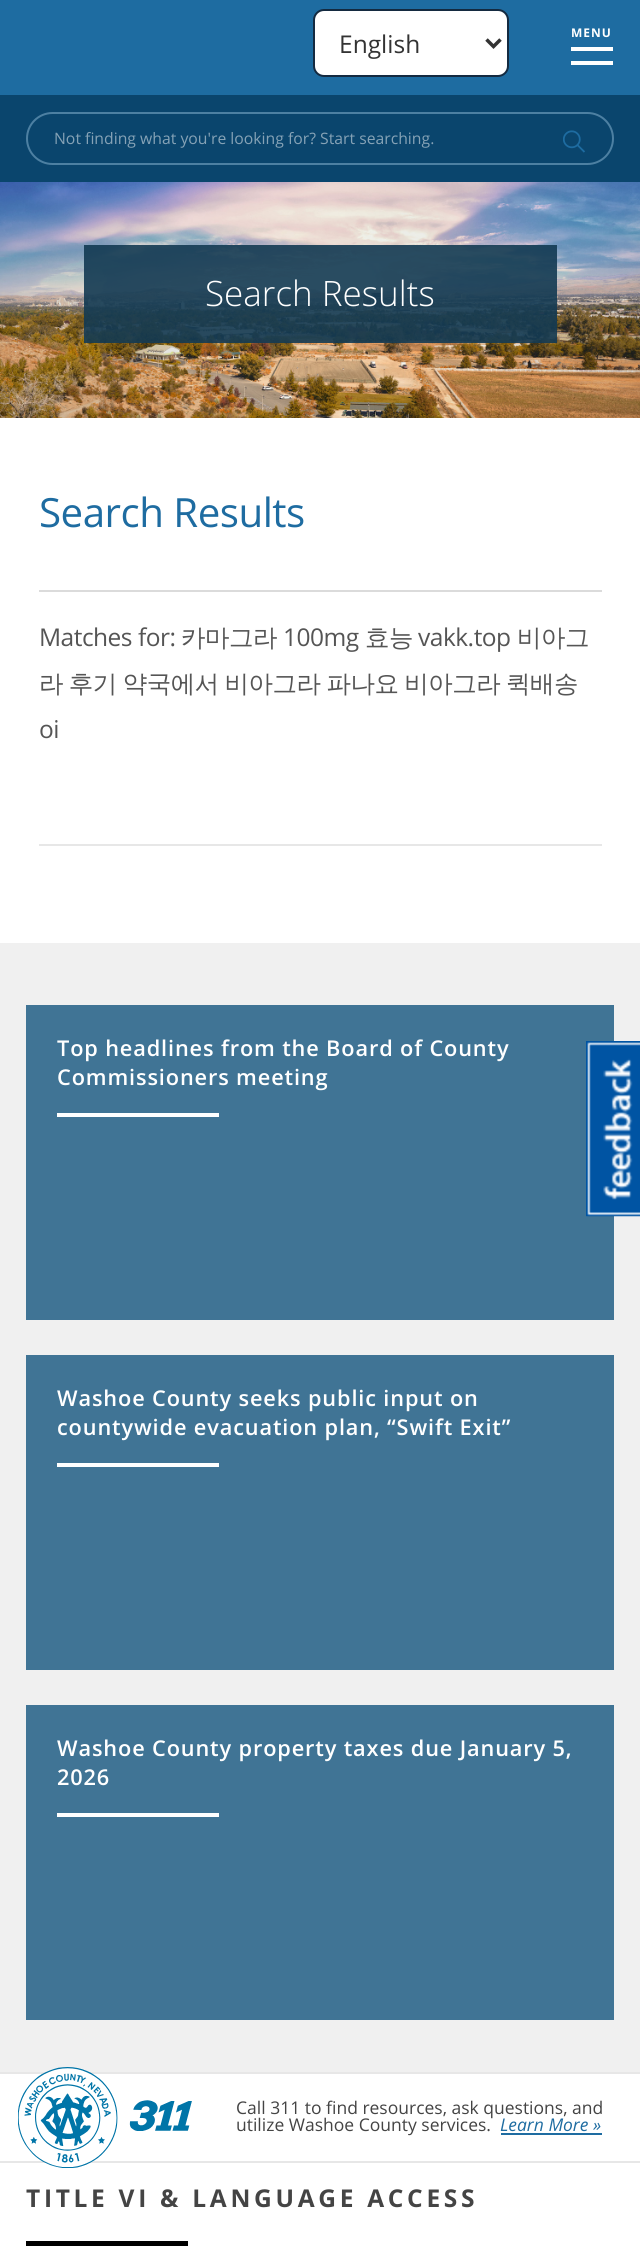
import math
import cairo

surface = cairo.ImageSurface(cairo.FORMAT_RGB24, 640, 2257)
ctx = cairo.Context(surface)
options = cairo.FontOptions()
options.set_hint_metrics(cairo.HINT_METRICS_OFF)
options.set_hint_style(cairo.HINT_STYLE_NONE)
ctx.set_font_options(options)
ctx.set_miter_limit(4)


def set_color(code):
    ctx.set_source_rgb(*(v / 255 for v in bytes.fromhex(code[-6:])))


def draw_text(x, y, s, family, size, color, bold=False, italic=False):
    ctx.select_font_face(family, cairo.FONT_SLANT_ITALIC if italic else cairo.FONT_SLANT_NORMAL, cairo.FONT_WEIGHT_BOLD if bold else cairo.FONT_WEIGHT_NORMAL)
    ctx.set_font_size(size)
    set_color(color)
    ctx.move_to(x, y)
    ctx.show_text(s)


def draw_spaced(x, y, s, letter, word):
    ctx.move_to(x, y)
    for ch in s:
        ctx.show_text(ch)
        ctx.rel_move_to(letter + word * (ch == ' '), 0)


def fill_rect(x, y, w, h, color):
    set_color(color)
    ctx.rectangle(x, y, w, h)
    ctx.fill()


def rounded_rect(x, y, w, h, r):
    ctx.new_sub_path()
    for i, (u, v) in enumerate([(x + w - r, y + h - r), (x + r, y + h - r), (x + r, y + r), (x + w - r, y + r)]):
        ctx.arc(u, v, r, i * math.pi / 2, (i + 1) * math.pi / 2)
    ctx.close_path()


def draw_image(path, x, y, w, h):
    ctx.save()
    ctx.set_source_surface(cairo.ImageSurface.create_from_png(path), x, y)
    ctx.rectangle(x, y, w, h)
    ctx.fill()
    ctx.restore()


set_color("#ffffff")
ctx.paint()
fill_rect(0, 0, 640, 95, "#1e6ca1")
ctx.select_font_face("Open Sans", cairo.FONT_SLANT_NORMAL, cairo.FONT_WEIGHT_BOLD)
ctx.set_font_size(12)
set_color("#ffffff")
draw_spaced(571, 37, "MENU", 1, 0)
fill_rect(571, 47, 42, 4, "#ffffff")
fill_rect(571, 61, 42, 4, "#ffffff")
rounded_rect(314, 10, 194, 66, 10)
ctx.fill_preserve()
set_color("#142a40")
ctx.stroke()
ctx.new_path()
ctx.move_to(486.5, 39.5)
ctx.line_to(493.5, 46.5)
ctx.line_to(500.5, 39.5)
set_color("#333333")
ctx.set_line_width(3.5)
ctx.stroke()
draw_text(339, 53, "English", "Open Sans", 24.5, "#333333")
fill_rect(0, 95, 640, 87, "#0a456d")
rounded_rect(27, 113, 586, 51, 25.5)
set_color("#4d80a2")
ctx.set_line_width(2)
ctx.stroke()
draw_text(54, 144, "Not finding what you're looking for? Start searching.", "Open Sans", 15.75, "#85a2b6")
draw_image("assets/img1.png", 563, 130, 22, 23)
draw_image("assets/img2.png", 0, 182, 640, 236)
ctx.set_source_rgba(0.075, 0.227, 0.325, 0.9)
ctx.rectangle(84, 245, 473, 98)
ctx.fill()
draw_text(205, 306, "Search Results", "Open Sans Light", 35, "#ffffff")
fill_rect(39, 590, 563, 2, "#dbdbdb")
ctx.select_font_face("Open Sans")
ctx.set_font_size(40.25)
set_color("#1e6ca1")
draw_spaced(39, 527, "Search Results", -0.5, 0)
ctx.set_font_size(24.5)
set_color("#555555")
draw_spaced(39, 646, "Matches for:", -0.5, 0)
ctx.select_font_face("WenQuanYi Zen Hei Medium")
draw_spaced(181, 646, "카마그라", -0.5, 0)
ctx.select_font_face("Open Sans")
draw_spaced(283, 646, "100mg", -0.5, 0)
ctx.select_font_face("WenQuanYi Zen Hei Medium")
draw_spaced(365, 646, "효능", -0.5, 0)
ctx.select_font_face("Open Sans")
draw_spaced(418, 646, "vakk.top", -0.5, 0)
ctx.select_font_face("WenQuanYi Zen Hei Medium")
draw_spaced(517, 646, "비아그", -0.5, 0)
draw_spaced(39, 692, "라 후기 약국에서 비아그라 파나요 비아그라 퀵배송", -0.5, -1)
ctx.select_font_face("Open Sans")
draw_spaced(39, 738, "oi", -0.5, 0)
fill_rect(39, 844, 563, 2, "#e7e7e7")
fill_rect(0, 943, 640, 1129, "#f0f0f0")
fill_rect(26, 1005, 588, 315, "#407495")
fill_rect(57, 1113, 162, 4, "#ffffff")
ctx.select_font_face("Open Sans SemiBold")
ctx.set_font_size(21.75)
draw_spaced(57, 1056, "Top headlines from the Board of County", 0.85, 0)
draw_spaced(57, 1085, "Commissioners meeting", 0.85, 0)
fill_rect(26, 1355, 588, 315, "#407495")
fill_rect(57, 1463, 162, 4, "#ffffff")
draw_spaced(57, 1406, "Washoe County seeks public input on", 0.85, 0)
draw_spaced(57, 1435, "countywide evacuation plan, “Swift Exit”", 0.85, 0)
fill_rect(26, 1705, 588, 315, "#407495")
fill_rect(57, 1813, 162, 4, "#ffffff")
draw_spaced(57, 1756, "Washoe County property taxes due January 5,", 0.85, 0)
draw_spaced(57, 1785, "2026", 0.85, 0)
fill_rect(0, 2072, 640, 2, "#e7e7e7")
fill_rect(0, 2161, 640, 2, "#e7e7e7")
draw_image("assets/img3.png", 18, 2067, 174, 101)
draw_text(236, 2114, "Call 311 to find resources, ask questions, and", "Open Sans", 17.5, "#444444")
draw_text(236, 2131, "utilize Washoe County services.", "Open Sans", 17.5, "#444444")
draw_text(500, 2131, "Learn More »", "Open Sans", 17.5, "#1e6ca1", italic=True)
fill_rect(501, 2133, 101, 2, "#1e6ca1")
fill_rect(26, 2241, 162, 5, "#000000")
ctx.select_font_face("Open Sans", cairo.FONT_SLANT_NORMAL, cairo.FONT_WEIGHT_BOLD)
ctx.set_font_size(24.5)
set_color("#444444")
draw_spaced(26, 2207, "TITLE VI & LANGUAGE ACCESS", 3.7, 0)
fill_rect(586, 1041, 54, 175, "#0054a3")
draw_image("assets/img4.png", 586, 1042, 54, 175)
surface.write_to_png("output.png")
